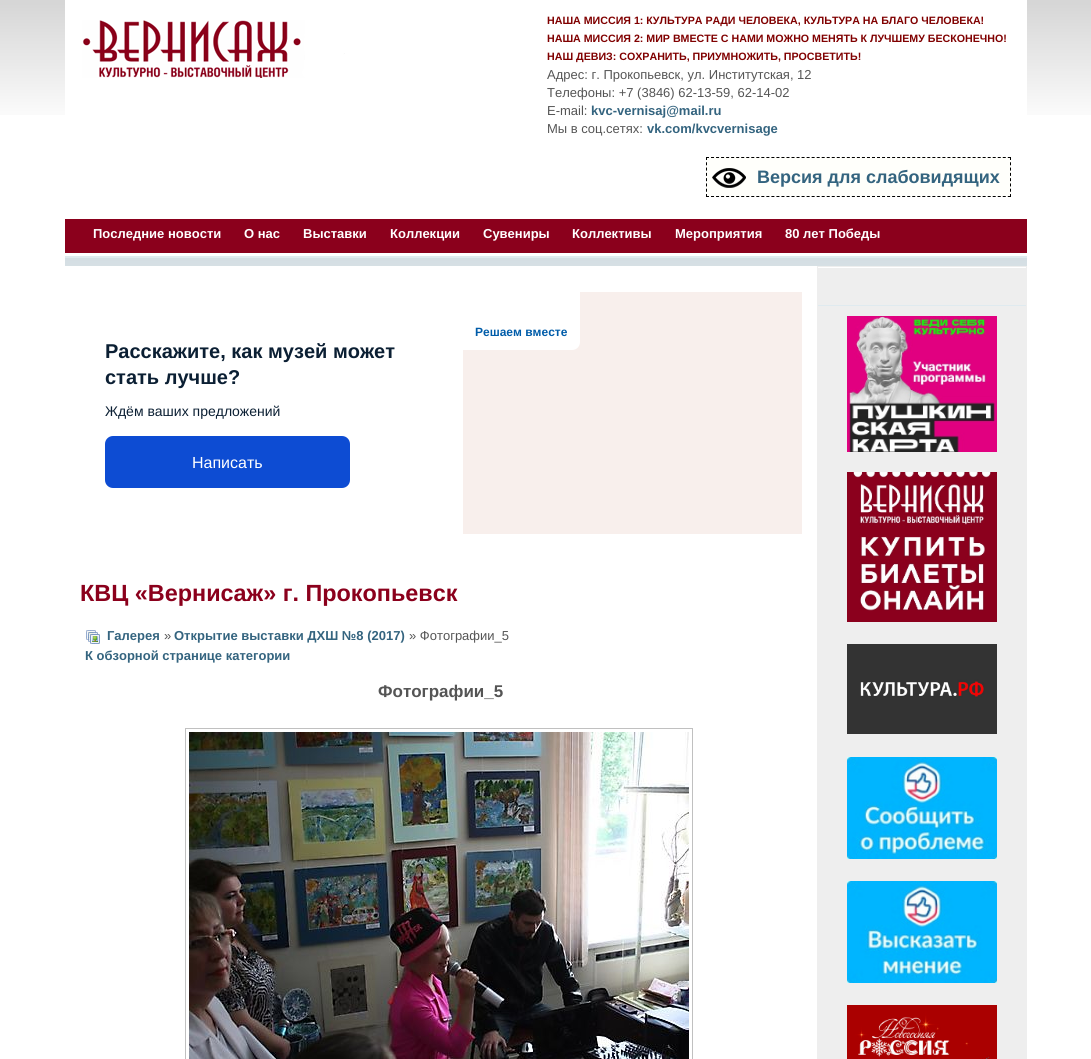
import math
import cairo

surface = cairo.ImageSurface(cairo.FORMAT_RGB24, 1091, 1059)
ctx = cairo.Context(surface)
options = cairo.FontOptions()
options.set_hint_metrics(cairo.HINT_METRICS_OFF)
options.set_hint_style(cairo.HINT_STYLE_NONE)
ctx.set_font_options(options)
ctx.set_miter_limit(4)


def set_color(code):
    ctx.set_source_rgb(*(v / 255 for v in bytes.fromhex(code[-6:])))


def draw_text(x, y, s, family, size, color, bold=False, italic=False):
    ctx.select_font_face(family, cairo.FONT_SLANT_ITALIC if italic else cairo.FONT_SLANT_NORMAL, cairo.FONT_WEIGHT_BOLD if bold else cairo.FONT_WEIGHT_NORMAL)
    ctx.set_font_size(size)
    set_color(color)
    ctx.move_to(x, y)
    ctx.show_text(s)


def fill_rect(x, y, w, h, color):
    set_color(color)
    ctx.rectangle(x, y, w, h)
    ctx.fill()


def rounded_rect(x, y, w, h, r):
    ctx.new_sub_path()
    for i, (u, v) in enumerate([(x + w - r, y + h - r), (x + r, y + h - r), (x + r, y + r), (x + w - r, y + r)]):
        ctx.arc(u, v, r, i * math.pi / 2, (i + 1) * math.pi / 2)
    ctx.close_path()


def draw_image(path, x, y, w, h):
    ctx.save()
    ctx.set_source_surface(cairo.ImageSurface.create_from_png(path), x, y)
    ctx.rectangle(x, y, w, h)
    ctx.fill()
    ctx.restore()


set_color("#ffffff")
ctx.paint()
draw_image("assets/img1.png", 0, 0, 1091, 115)
fill_rect(65, 0, 962, 115, "#ffffff")
draw_image("assets/img2.png", 82, 20, 263, 58)
draw_text(547, 24, "НАША МИССИЯ 1: КУЛЬТУРА РАДИ ЧЕЛОВЕКА, КУЛЬТУРА НА БЛАГО ЧЕЛОВЕКА!", "Liberation Sans", 10.65, "#800000", bold=True)
draw_text(547, 42, "НАША МИССИЯ 2: МИР ВМЕСТЕ С НАМИ МОЖНО МЕНЯТЬ К ЛУЧШЕМУ БЕСКОНЕЧНО!", "Liberation Sans", 10.65, "#800000", bold=True)
draw_text(547, 60, "НАШ ДЕВИЗ: СОХРАНИТЬ, ПРИУМНОЖИТЬ, ПРОСВЕТИТЬ!", "Liberation Sans", 10.65, "#800000", bold=True)
draw_text(547, 79, "Адрес: г. Прокопьевск, ул. Институтская, 12", "Liberation Sans", 13, "#555555")
draw_text(547, 97, "Телефоны: +7 (3846) 62-13-59, 62-14-02", "Liberation Sans", 13, "#555555")
draw_text(547, 115, "E-mail:", "Liberation Sans", 13, "#555555")
draw_text(591, 115, "kvc-vernisaj@mail.ru", "Liberation Sans", 13, "#34647f", bold=True)
draw_text(547, 133, "Мы в соц.сетях:", "Liberation Sans", 13, "#555555")
draw_text(647, 133, "vk.com/kvcvernisage", "Liberation Sans", 13, "#34647f", bold=True)
fill_rect(706, 157, 305, 40, "#fffffb")
draw_image("assets/img3.png", 712, 168, 34, 20)
ctx.new_path()
ctx.move_to(706, 157.5)
ctx.line_to(1011, 157.5)
set_color("#000000")
ctx.set_line_width(1)
ctx.set_dash([3, 2.03])
ctx.stroke()
ctx.new_path()
ctx.move_to(1010.5, 157)
ctx.line_to(1010.5, 197)
ctx.set_dash([3, 2.29])
ctx.stroke()
ctx.new_path()
ctx.move_to(706, 196.5)
ctx.line_to(1011, 196.5)
ctx.set_dash([3, 2.03])
ctx.stroke()
ctx.new_path()
ctx.move_to(706.5, 157)
ctx.line_to(706.5, 197)
ctx.set_dash([3, 2.29])
ctx.stroke()
draw_text(757, 183, "Версия для слабовидящих", "Liberation Sans", 18, "#34647f", bold=True)
fill_rect(65, 219, 962, 34, "#8b001c")
draw_text(93, 238, "Последние новости", "Liberation Sans", 13, "#ffffff", bold=True)
draw_text(244, 238, "О нас", "Liberation Sans", 13, "#ffffff", bold=True)
draw_text(303, 238, "Выставки", "Liberation Sans", 13, "#ffffff", bold=True)
draw_text(390, 238, "Коллекции", "Liberation Sans", 13, "#ffffff", bold=True)
draw_text(483, 238, "Сувениры", "Liberation Sans", 13, "#ffffff", bold=True)
draw_text(572, 238, "Коллективы", "Liberation Sans", 13, "#ffffff", bold=True)
draw_text(675, 238, "Мероприятия", "Liberation Sans", 13, "#ffffff", bold=True)
draw_text(785, 238, "80 лет Победы", "Liberation Sans", 13, "#ffffff", bold=True)
fill_rect(65, 256, 962, 2, "#dfeaee")
draw_image("assets/img4.png", 65, 258, 962, 8)
fill_rect(817, 266, 210, 793, "#eeeeee")
fill_rect(463, 292, 339, 242, "#f8efec")
set_color("#ffffff")
ctx.new_path()
ctx.move_to(463, 292)
ctx.line_to(580, 292)
ctx.line_to(580, 342)
ctx.curve_to(580, 346.5, 576.5, 350, 572, 350)
ctx.line_to(463, 350)
ctx.close_path()
ctx.fill()
draw_text(475, 336, "Решаем вместе", "Liberation Sans", 12, "#005ca9", bold=True)
draw_text(105, 358, "Расскажите, как музей может", "Liberation Sans", 20, "#0b1f33", bold=True)
draw_text(105, 384, "стать лучше?", "Liberation Sans", 20, "#0b1f33", bold=True)
draw_text(105, 416, "Ждём ваших предложений", "Liberation Sans", 14, "#0b1f33")
set_color("#0d4cd3")
rounded_rect(105, 436, 245, 52, 8)
ctx.fill()
draw_text(192, 468, "Написать", "Liberation Sans", 16, "#ffffff")
draw_text(80, 601, "КВЦ «Вернисаж» г. Прокопьевск", "Liberation Sans", 23.4, "#8b001c", bold=True)
draw_image("assets/img5.png", 86, 630, 14, 14)
draw_text(107, 640, "Галерея", "Liberation Sans", 13, "#34647f", bold=True)
draw_text(164, 640, "»", "Liberation Sans", 13, "#555555")
draw_text(174, 640, "Открытие выставки ДХШ №8 (2017)", "Liberation Sans", 13, "#34647f", bold=True)
draw_text(409, 640, "» Фотографии_5", "Liberation Sans", 13, "#555555")
draw_text(85, 660, "К обзорной странице категории", "Liberation Sans", 13, "#34647f", bold=True)
draw_text(378, 697, "Фотографии_5", "Liberation Sans", 17, "#555555", bold=True)
ctx.rectangle(185.5, 728.5, 507, 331)
set_color("#c0c0c0")
ctx.set_dash([])
ctx.stroke()
draw_image("assets/img6.png", 189, 732, 500, 327)
fill_rect(818, 267, 208, 1, "#ffffff")
fill_rect(818, 305, 208, 1, "#dfeaef")
draw_image("assets/img7.png", 847, 316, 150, 136)
draw_image("assets/img8.png", 847, 472, 150, 150)
draw_image("assets/img9.png", 847, 644, 150, 90)
draw_image("assets/img10.png", 847, 757, 150, 102)
draw_image("assets/img11.png", 847, 881, 150, 102)
draw_image("assets/img12.png", 847, 1005, 150, 54)
surface.write_to_png("output.png")
